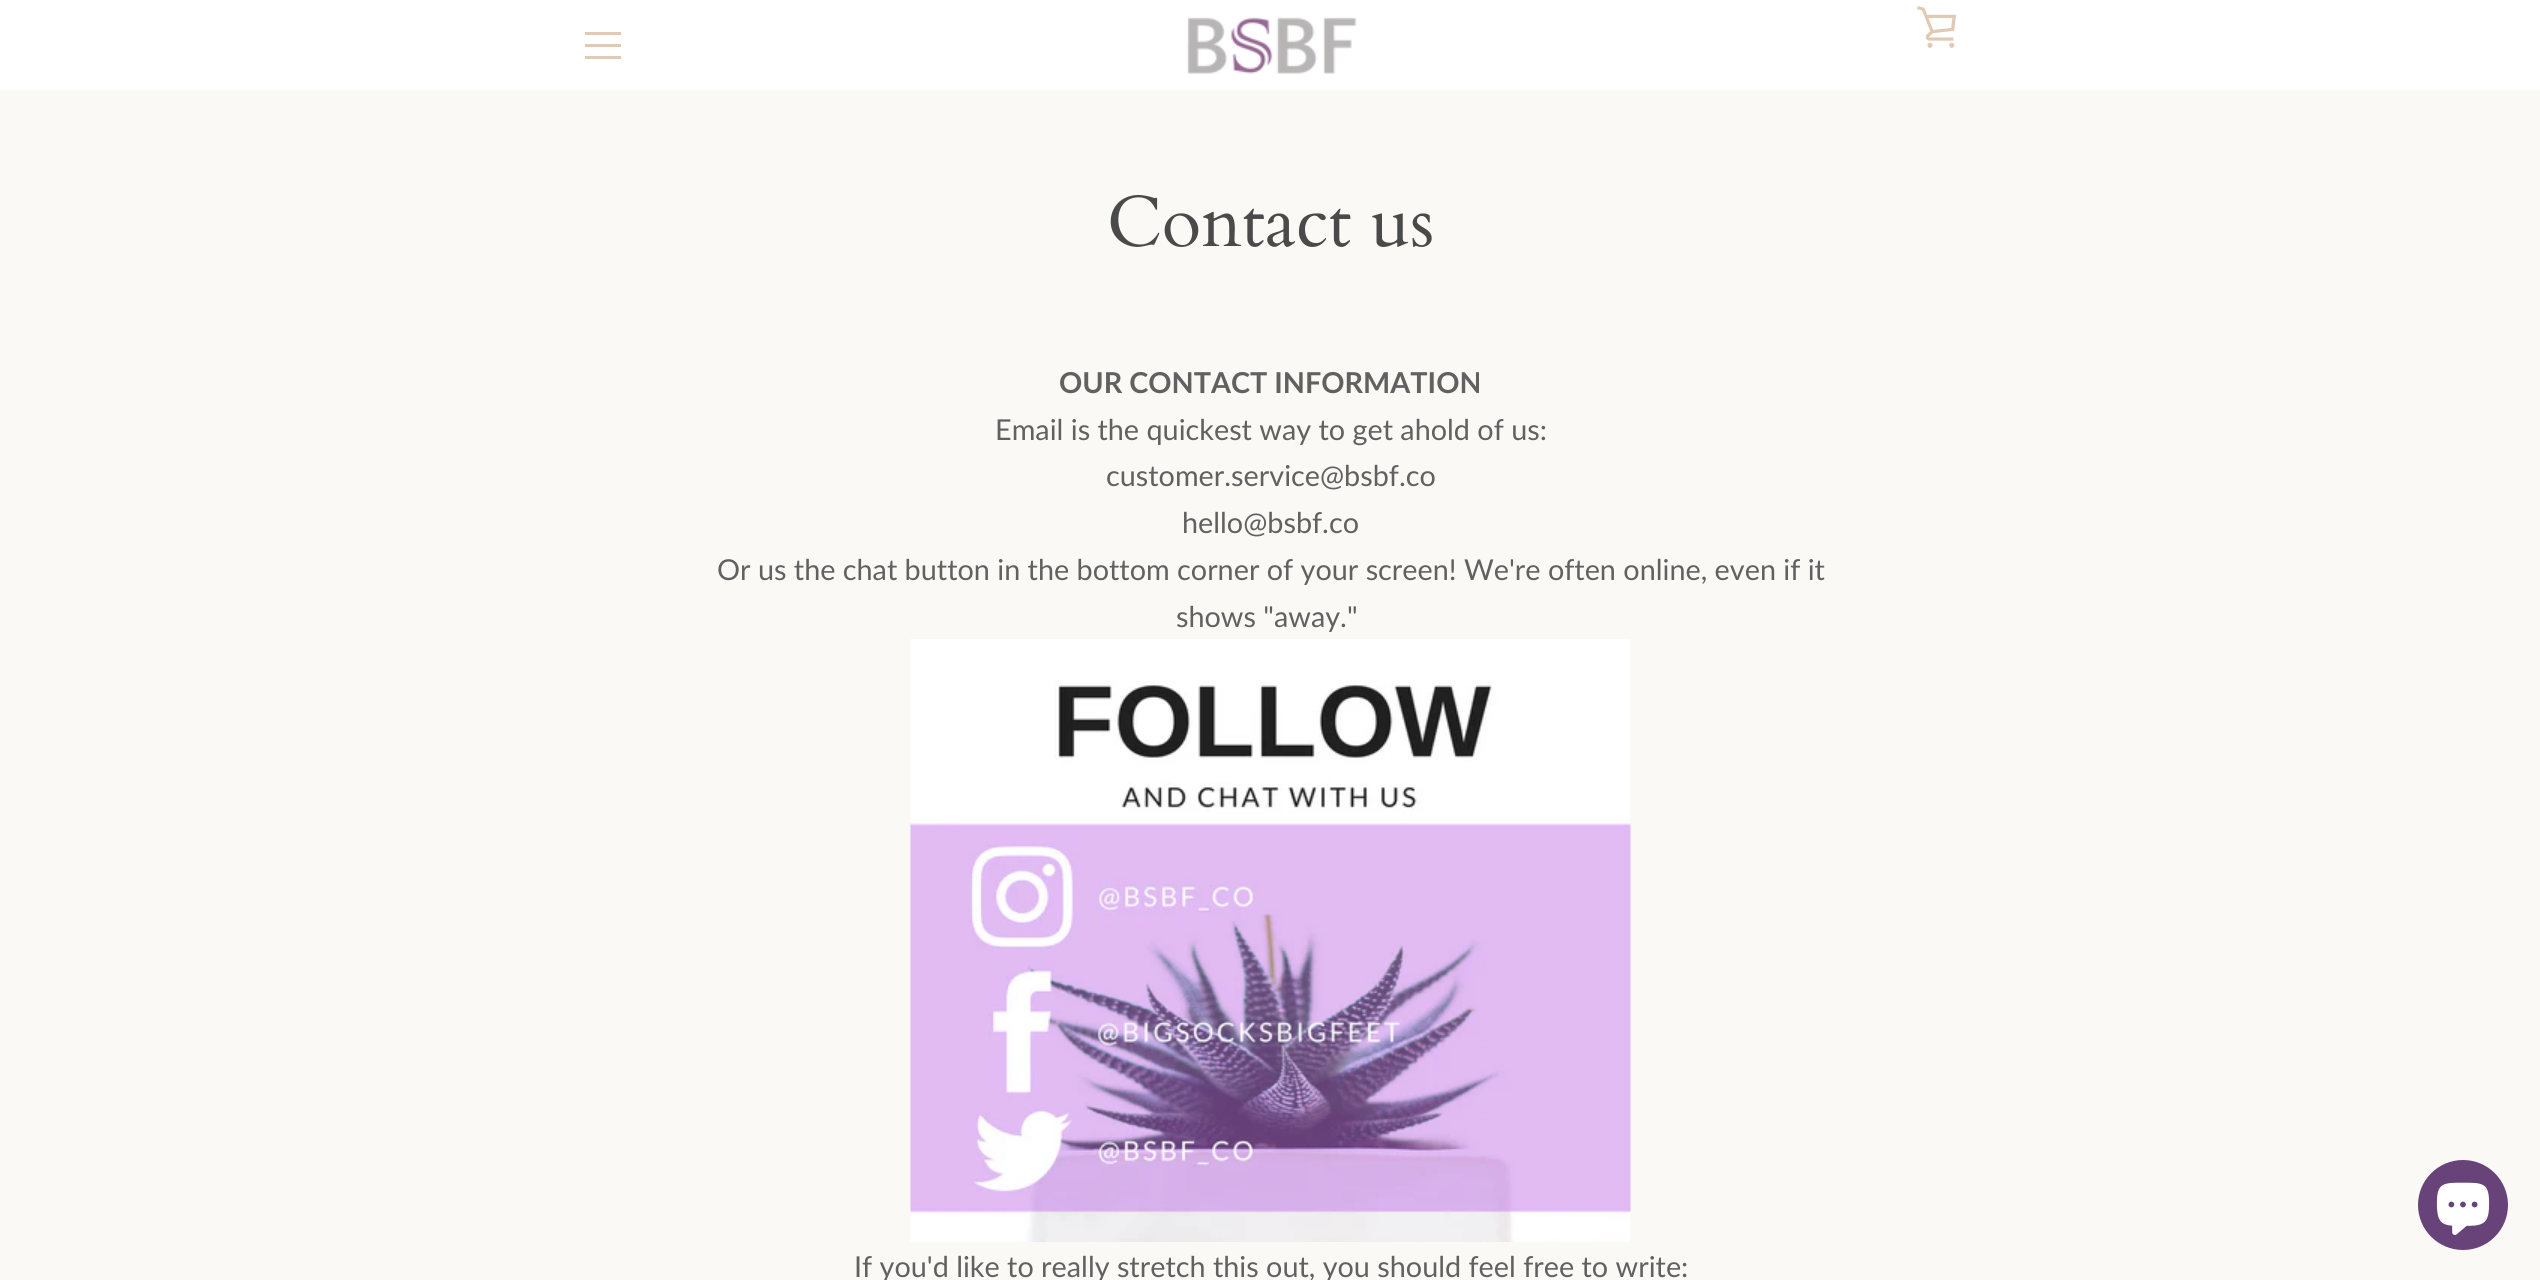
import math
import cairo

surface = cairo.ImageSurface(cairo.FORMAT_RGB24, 2540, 1280)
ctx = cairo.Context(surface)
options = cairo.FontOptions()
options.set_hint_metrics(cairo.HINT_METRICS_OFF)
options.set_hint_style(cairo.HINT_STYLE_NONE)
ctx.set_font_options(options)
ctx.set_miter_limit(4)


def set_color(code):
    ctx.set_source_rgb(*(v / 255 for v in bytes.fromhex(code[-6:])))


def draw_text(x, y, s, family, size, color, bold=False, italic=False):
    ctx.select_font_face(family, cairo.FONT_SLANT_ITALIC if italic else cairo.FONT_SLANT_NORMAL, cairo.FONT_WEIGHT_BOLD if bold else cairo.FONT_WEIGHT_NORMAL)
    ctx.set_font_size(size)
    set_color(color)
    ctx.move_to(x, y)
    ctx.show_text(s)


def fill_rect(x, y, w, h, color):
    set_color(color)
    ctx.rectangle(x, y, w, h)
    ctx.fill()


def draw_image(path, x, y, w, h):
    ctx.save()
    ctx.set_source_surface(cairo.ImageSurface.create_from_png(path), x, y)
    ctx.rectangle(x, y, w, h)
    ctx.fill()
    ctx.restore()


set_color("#faf9f6")
ctx.paint()
fill_rect(0, 0, 2540, 90, "#ffffff")
fill_rect(585, 32, 36, 3, "#e1c9b4")
fill_rect(585, 44, 36, 3, "#e1c9b4")
fill_rect(585, 56, 36, 3, "#e1c9b4")
draw_image("assets/img1.png", 1187, 17, 170, 57)
draw_image("assets/img2.png", 1917, 6, 39, 42)
draw_text(1107, 246, "Contact us", "Cardo", 72, "#4a4a4a")
draw_text(1059, 393, "OUR CONTACT INFORMATION", "Lato", 28.8, "#616161", bold=True)
draw_text(995, 440, "Email is the quickest way to get ahold of us:", "Lato", 28.8, "#616161")
draw_text(1106, 486, "customer.service@bsbf.co", "Lato", 28.8, "#616161")
draw_text(1182, 533, "hello@bsbf.co", "Lato", 28.8, "#616161")
draw_text(717, 580, "Or us the chat button in the bottom corner of your screen! We're often online, even if it", "Lato", 28.8, "#616161")
draw_text(1176, 627, "shows \"away.\"", "Lato", 28.8, "#616161")
draw_image("assets/img3.png", 910, 639, 721, 603)
draw_text(854, 1277, "If you'd like to really stretch this out, you should feel free to write:", "Lato", 28.8, "#616161")
set_color("#674379")
ctx.new_path()
ctx.arc(2463, 1205, 45, 0, 2 * math.pi)
ctx.fill()
draw_image("assets/img4.png", 2436, 1182, 54, 53)
surface.write_to_png("output.png")
